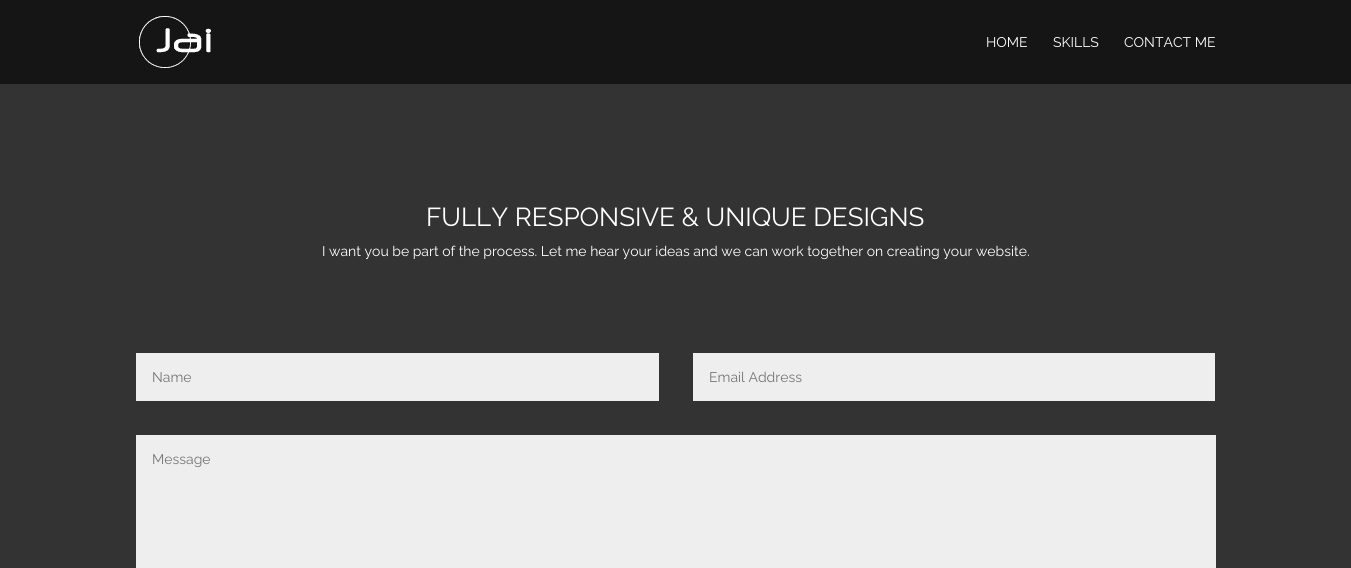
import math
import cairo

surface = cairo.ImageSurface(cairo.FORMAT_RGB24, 1351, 568)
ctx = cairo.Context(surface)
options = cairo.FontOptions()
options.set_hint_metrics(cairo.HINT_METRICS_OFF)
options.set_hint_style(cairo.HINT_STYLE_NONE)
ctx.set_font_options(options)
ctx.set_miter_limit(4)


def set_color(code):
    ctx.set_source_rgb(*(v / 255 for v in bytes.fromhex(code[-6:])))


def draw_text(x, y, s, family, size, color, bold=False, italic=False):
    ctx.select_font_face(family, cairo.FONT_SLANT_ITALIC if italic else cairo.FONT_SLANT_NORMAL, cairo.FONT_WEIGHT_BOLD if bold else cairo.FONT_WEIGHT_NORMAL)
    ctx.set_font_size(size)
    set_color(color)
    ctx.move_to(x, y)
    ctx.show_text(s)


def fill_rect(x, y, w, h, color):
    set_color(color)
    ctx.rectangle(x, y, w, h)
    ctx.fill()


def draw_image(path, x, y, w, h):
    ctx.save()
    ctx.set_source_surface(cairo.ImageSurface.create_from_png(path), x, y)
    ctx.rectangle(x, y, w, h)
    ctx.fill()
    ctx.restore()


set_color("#333333")
ctx.paint()
fill_rect(0, 0, 1351, 84, "#161515")
draw_image("assets/img1.png", 139, 16, 72, 52)
draw_text(986, 47, "HOME", "Raleway", 14, "#ffffff")
draw_text(1053, 47, "SKILLS", "Raleway", 14, "#ffffff")
draw_text(1124, 47, "CONTACT ME", "Raleway", 14, "#ffffff")
draw_text(426, 226, "FULLY RESPONSIVE & UNIQUE DESIGNS", "Raleway", 26, "#ffffff")
draw_text(322, 256, "I want you be part of the process. Let me hear your ideas and we can work together on creating your website.", "Raleway", 14, "#ffffff")
fill_rect(136, 353, 523, 48, "#eeeeee")
draw_text(152, 382, "Name", "Raleway", 14, "#757575")
fill_rect(693, 353, 522, 48, "#eeeeee")
draw_text(709, 382, "Email Address", "Raleway", 14, "#757575")
fill_rect(136, 435, 1080, 133, "#eeeeee")
draw_text(152, 464, "Message", "Raleway", 14, "#757575")
surface.write_to_png("output.png")
